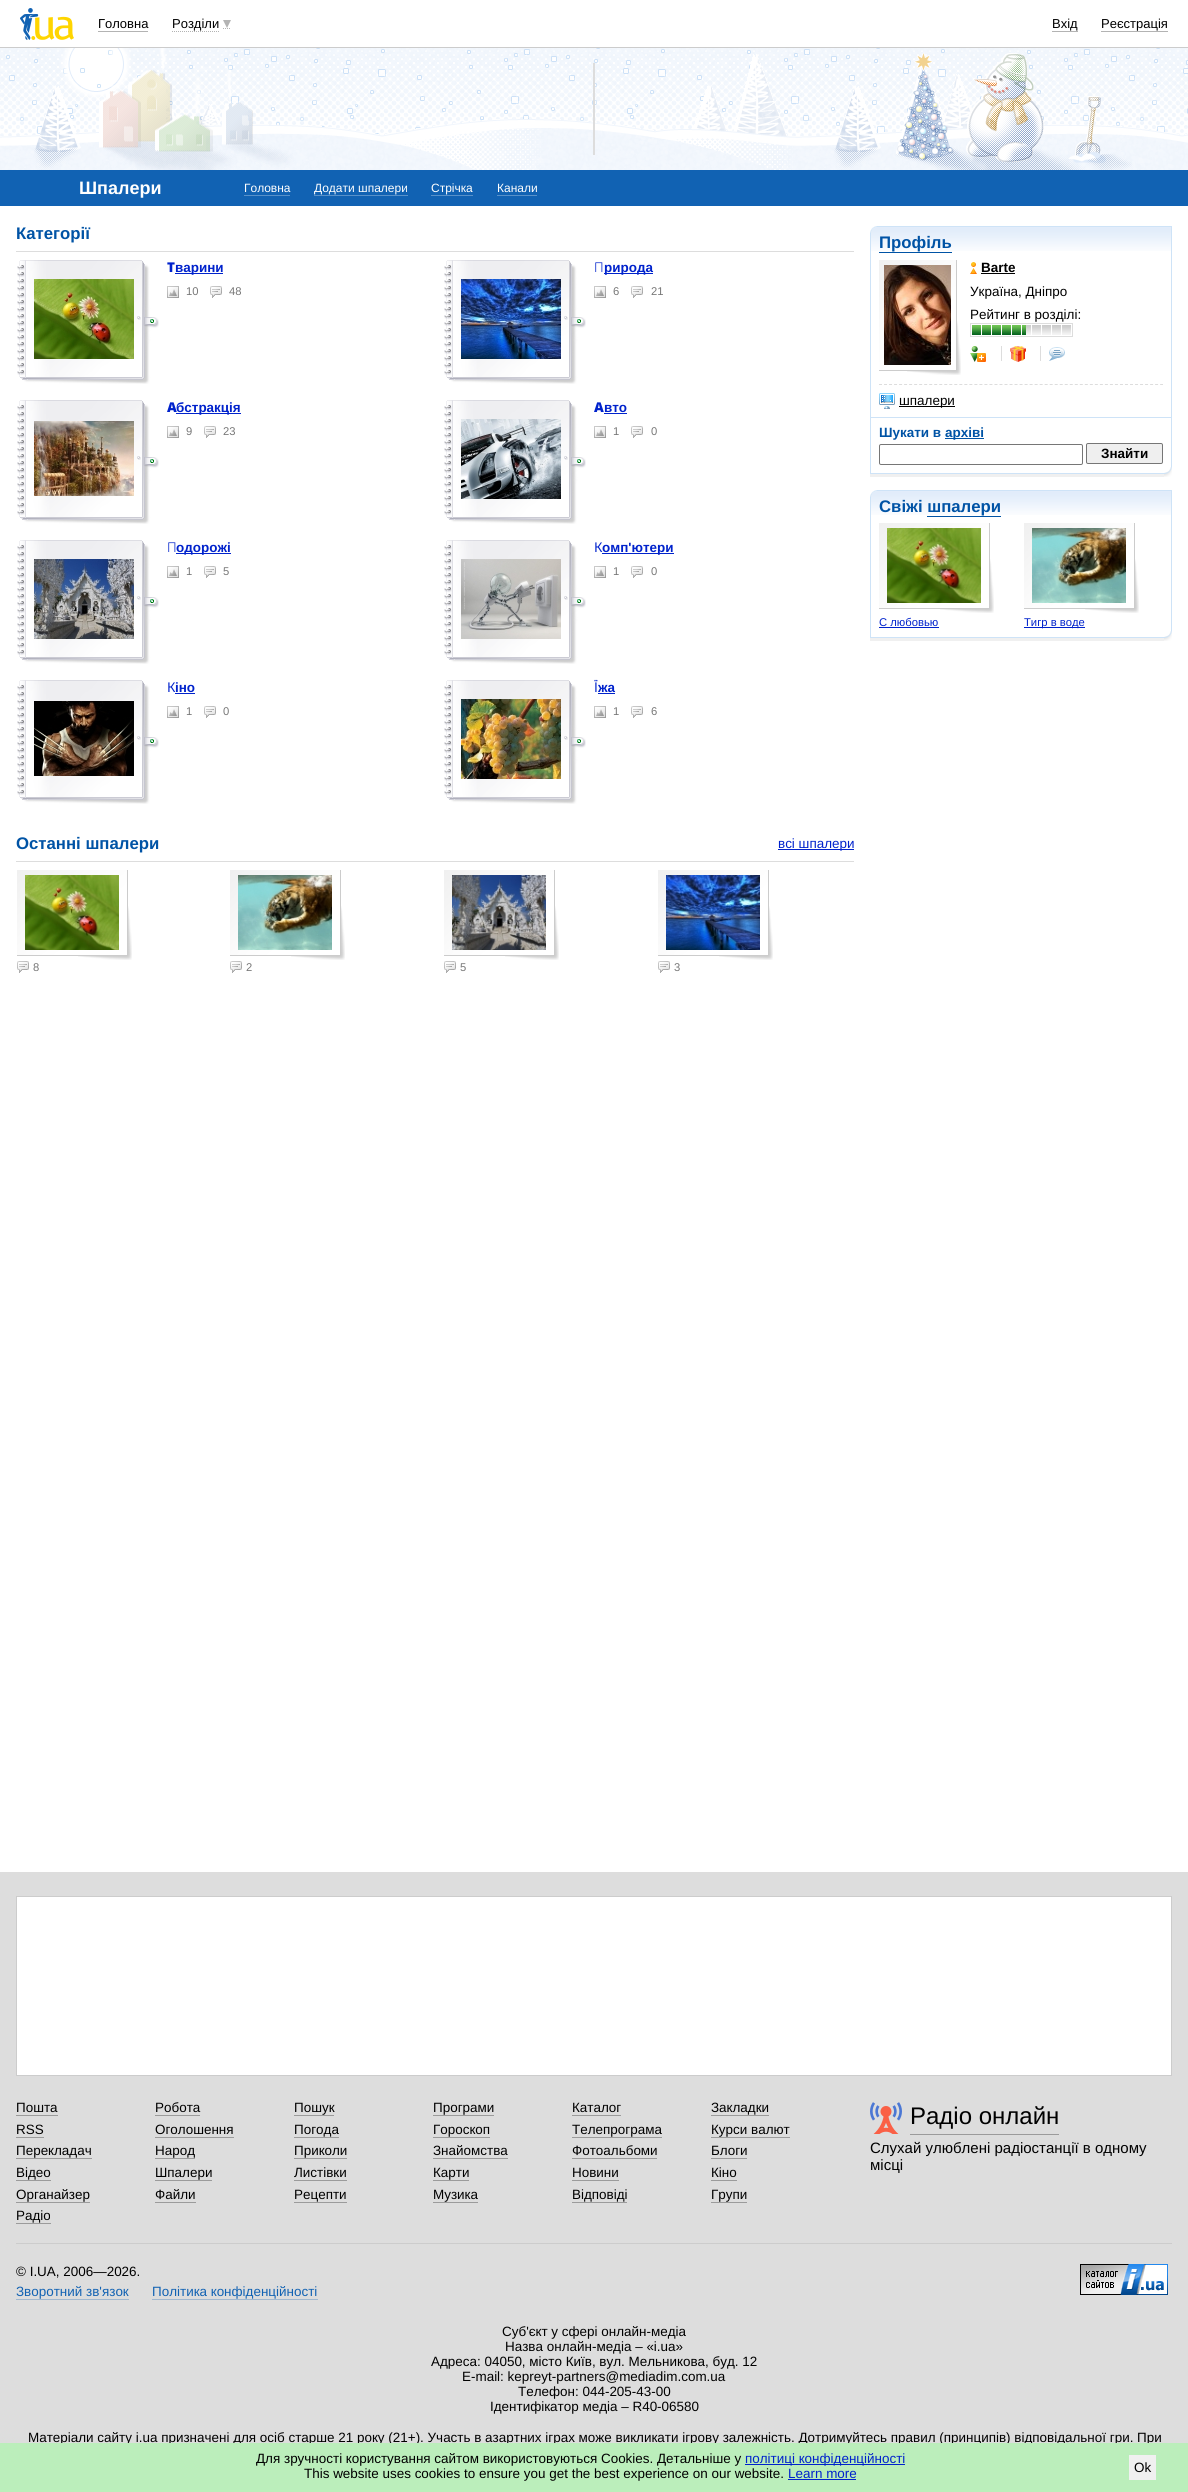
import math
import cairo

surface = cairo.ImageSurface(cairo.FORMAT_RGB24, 1188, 2492)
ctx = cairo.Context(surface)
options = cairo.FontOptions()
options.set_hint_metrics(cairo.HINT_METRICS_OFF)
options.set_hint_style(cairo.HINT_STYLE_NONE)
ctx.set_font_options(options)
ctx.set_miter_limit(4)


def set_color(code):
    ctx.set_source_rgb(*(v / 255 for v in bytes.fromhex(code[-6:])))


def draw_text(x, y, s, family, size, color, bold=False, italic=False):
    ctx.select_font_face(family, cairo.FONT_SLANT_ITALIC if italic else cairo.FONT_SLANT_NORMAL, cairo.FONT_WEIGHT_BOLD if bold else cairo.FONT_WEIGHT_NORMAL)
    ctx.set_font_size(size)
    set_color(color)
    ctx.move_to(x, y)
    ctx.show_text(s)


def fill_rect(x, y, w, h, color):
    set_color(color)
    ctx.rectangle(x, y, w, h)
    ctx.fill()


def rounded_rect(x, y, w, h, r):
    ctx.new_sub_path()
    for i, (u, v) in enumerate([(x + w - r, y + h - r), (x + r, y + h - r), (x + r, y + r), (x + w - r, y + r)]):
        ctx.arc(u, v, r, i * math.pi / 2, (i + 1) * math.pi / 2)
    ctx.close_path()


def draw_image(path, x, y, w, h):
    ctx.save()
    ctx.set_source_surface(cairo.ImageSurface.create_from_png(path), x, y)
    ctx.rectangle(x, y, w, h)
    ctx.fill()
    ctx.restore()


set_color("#ffffff")
ctx.paint()
fill_rect(0, 47, 1188, 1, "#cccccc")
draw_image("assets/img1.png", 20, 8, 54, 32)
draw_text(98, 28, "Головна", "Liberation Sans", 13, "#000000")
fill_rect(98, 31, 50, 1, "#b3b3b3")
ctx.new_path()
ctx.move_to(172, 31.5)
ctx.line_to(219, 31.5)
ctx.move_to(223, 28.5)
ctx.line_to(231, 28.5)
ctx.set_line_width(1)
ctx.set_dash([1, 1])
ctx.stroke()
draw_text(172, 28, "Розділи", "Liberation Sans", 13, "#000000")
set_color("#b3b3b3")
ctx.new_path()
ctx.move_to(223, 20)
ctx.line_to(231, 20)
ctx.line_to(227, 28)
ctx.close_path()
ctx.fill()
draw_text(1052, 28, "Вхід", "Liberation Sans", 13, "#000000")
fill_rect(1052, 31, 26, 1, "#b3b3b3")
draw_text(1101, 28, "Реєстрація", "Liberation Sans", 13, "#000000")
fill_rect(1101, 31, 67, 1, "#b3b3b3")
draw_image("assets/img2.png", 0, 48, 1188, 122)
fill_rect(593, 63, 2, 92, "#dddddd")
fill_rect(0, 170, 1188, 36, "#1162b3")
draw_text(79, 194, "Шпалери", "Liberation Sans", 18, "#ffffff", bold=True)
draw_text(244, 192, "Головна", "Liberation Sans", 12, "#ffffff")
fill_rect(244, 195, 46, 1, "#5891ca")
draw_text(314, 192, "Додати шпалери", "Liberation Sans", 12, "#ffffff")
fill_rect(314, 195, 94, 1, "#5891ca")
draw_text(431, 192, "Стрічка", "Liberation Sans", 12, "#ffffff")
fill_rect(431, 195, 42, 1, "#5891ca")
draw_text(497, 192, "Канали", "Liberation Sans", 12, "#ffffff")
fill_rect(497, 195, 40, 1, "#5891ca")
draw_text(16, 239, "Категорії", "Liberation Sans", 16.75, "#0053a5", bold=True)
fill_rect(16, 251, 838, 1, "#dddddd")
draw_image("assets/img3.png", 17, 260, 142, 124)
draw_image("assets/img4.png", 34, 279, 100, 80)
draw_text(167, 272, "Т", "Noto Sans Black", 13.45, "#0022cc")
fill_rect(175, 273, 48, 1, "#0022cc")
draw_text(175, 272, "варини", "Liberation Sans", 13.45, "#0022cc", bold=True)
draw_image("assets/img5.png", 167, 286, 12, 12)
draw_text(186, 295, "10", "Liberation Sans", 11.25, "#777777")
draw_image("assets/img6.png", 210, 286, 12, 12)
draw_text(229, 295, "48", "Liberation Sans", 11.25, "#777777")
draw_image("assets/img3.png", 444, 260, 142, 124)
draw_image("assets/img7.png", 461, 279, 100, 80)
draw_text(594, 272, "П", "Noto Sans Light", 13.45, "#0022cc")
fill_rect(604, 273, 49, 1, "#0022cc")
draw_text(604, 272, "рирода", "Liberation Sans", 13.45, "#0022cc", bold=True)
draw_image("assets/img5.png", 594, 286, 12, 12)
draw_text(613, 295, "6", "Liberation Sans", 11.25, "#777777")
draw_image("assets/img6.png", 631, 286, 12, 12)
draw_text(651, 295, "21", "Liberation Sans", 11.25, "#777777")
draw_image("assets/img3.png", 17, 400, 142, 124)
draw_image("assets/img8.png", 34, 421, 100, 75)
draw_text(167, 412, "А", "Noto Sans Black", 13.45, "#0022cc")
fill_rect(176, 413, 65, 1, "#0022cc")
draw_text(176, 412, "бстракція", "Liberation Sans", 13.45, "#0022cc", bold=True)
draw_image("assets/img5.png", 167, 426, 12, 12)
draw_text(186, 435, "9", "Liberation Sans", 11.25, "#777777")
draw_image("assets/img6.png", 204, 426, 12, 12)
draw_text(223, 435, "23", "Liberation Sans", 11.25, "#777777")
draw_image("assets/img3.png", 444, 400, 142, 124)
draw_image("assets/img9.png", 461, 419, 100, 80)
draw_text(594, 412, "А", "Noto Sans Black", 13.45, "#0022cc")
draw_text(604, 412, "вто", "Liberation Sans", 13.45, "#0022cc", bold=True)
fill_rect(604, 413, 23, 1, "#0022cc")
draw_image("assets/img5.png", 594, 426, 12, 12)
draw_text(613, 435, "1", "Liberation Sans", 11.25, "#777777")
draw_image("assets/img6.png", 631, 426, 12, 12)
draw_text(651, 435, "0", "Liberation Sans", 11.25, "#777777")
draw_image("assets/img3.png", 17, 540, 142, 124)
draw_image("assets/img10.png", 34, 559, 100, 80)
draw_text(167, 552, "П", "Noto Sans Light", 13.45, "#0022cc")
fill_rect(176, 553, 55, 1, "#0022cc")
draw_text(176, 552, "одорожі", "Liberation Sans", 13.45, "#0022cc", bold=True)
draw_image("assets/img5.png", 167, 566, 12, 12)
draw_text(186, 575, "1", "Liberation Sans", 11.25, "#777777")
draw_image("assets/img6.png", 204, 566, 12, 12)
draw_text(223, 575, "5", "Liberation Sans", 11.25, "#777777")
draw_image("assets/img3.png", 444, 540, 142, 124)
draw_image("assets/img11.png", 461, 559, 100, 80)
draw_text(594, 552, "К", "Noto Sans", 13.45, "#0022cc")
fill_rect(602, 553, 72, 1, "#0022cc")
draw_text(602, 552, "омп'ютери", "Liberation Sans", 13.45, "#0022cc", bold=True)
draw_image("assets/img5.png", 594, 566, 12, 12)
draw_text(613, 575, "1", "Liberation Sans", 11.25, "#777777")
draw_image("assets/img6.png", 631, 566, 12, 12)
draw_text(651, 575, "0", "Liberation Sans", 11.25, "#777777")
draw_image("assets/img3.png", 17, 680, 142, 124)
draw_image("assets/img12.png", 34, 701, 100, 75)
draw_text(167, 692, "К", "Noto Sans", 13.45, "#0022cc")
draw_text(175, 692, "іно", "Liberation Sans", 13.45, "#0022cc", bold=True)
fill_rect(175, 693, 20, 1, "#0022cc")
draw_image("assets/img5.png", 167, 706, 12, 12)
draw_text(186, 715, "1", "Liberation Sans", 11.25, "#777777")
draw_image("assets/img6.png", 204, 706, 12, 12)
draw_text(223, 715, "0", "Liberation Sans", 11.25, "#777777")
draw_image("assets/img3.png", 444, 680, 142, 124)
draw_image("assets/img13.png", 461, 699, 100, 80)
draw_text(594, 692, "Ї", "Noto Sans", 13.45, "#0022cc")
draw_text(598, 692, "жа", "Liberation Sans", 13.45, "#0022cc", bold=True)
fill_rect(598, 693, 17, 1, "#0022cc")
draw_image("assets/img5.png", 594, 706, 12, 12)
draw_text(613, 715, "1", "Liberation Sans", 11.25, "#777777")
draw_image("assets/img6.png", 631, 706, 12, 12)
draw_text(651, 715, "6", "Liberation Sans", 11.25, "#777777")
fill_rect(16, 861, 838, 1, "#dddddd")
draw_text(16, 849, "Останні шпалери", "Liberation Sans", 16.75, "#0053a5", bold=True)
fill_rect(778, 849, 76, 1, "#0022cc")
draw_text(778, 848, "всі шпалери", "Liberation Sans", 13.45, "#0022cc")
draw_image("assets/img14.png", 17, 870, 115, 90)
draw_image("assets/img15.png", 25, 875, 94, 75)
draw_image("assets/img6.png", 17, 961, 12, 12)
draw_text(33, 971, "8", "Liberation Sans", 11.25, "#777777")
draw_image("assets/img14.png", 230, 870, 115, 90)
draw_image("assets/img16.png", 238, 875, 94, 75)
draw_image("assets/img6.png", 230, 961, 12, 12)
draw_text(246, 971, "2", "Liberation Sans", 11.25, "#777777")
draw_image("assets/img14.png", 444, 870, 115, 90)
draw_image("assets/img17.png", 452, 875, 94, 75)
draw_image("assets/img6.png", 444, 961, 12, 12)
draw_text(460, 971, "5", "Liberation Sans", 11.25, "#777777")
draw_image("assets/img14.png", 658, 870, 115, 90)
draw_image("assets/img18.png", 666, 875, 94, 75)
draw_image("assets/img6.png", 658, 961, 12, 12)
draw_text(674, 971, "3", "Liberation Sans", 11.25, "#777777")
fill_rect(870, 474, 302, 3, "#f0f0f0")
draw_image("assets/img20.png", 871, 227, 300, 24)
ctx.rectangle(870.5, 226.5, 301, 247)
set_color("#cee3f7")
ctx.set_dash([])
ctx.stroke()
draw_image("assets/img19.png", 870, 226, 7, 7)
draw_text(879, 248, "Профіль", "Liberation Sans", 16.75, "#0053a5", bold=True)
fill_rect(879, 252, 73, 1, "#0053a5")
draw_image("assets/img21.png", 879, 260, 82, 115)
draw_image("assets/img22.png", 884, 265, 67, 100)
draw_image("assets/img23.png", 970, 262, 7, 12)
draw_text(981, 272, "Barte", "Liberation Sans", 13.45, "#000000", bold=True)
fill_rect(981, 273, 34, 1, "#000000")
draw_text(970, 296, "Україна, Дніпро", "Liberation Sans", 13.45, "#000000")
draw_text(970, 319, "Рейтинг в розділі:", "Liberation Sans", 13.45, "#000000")
draw_image("assets/img24.png", 1026, 325, 45, 10)
ctx.rectangle(970.5, 323.5, 102, 13)
set_color("#dddddd")
ctx.stroke()
draw_image("assets/img25.png", 972, 325, 54, 10)
draw_image("assets/img26.png", 970, 346, 16, 16)
fill_rect(1001, 346, 1, 15, "#dddddd")
draw_image("assets/img27.png", 1010, 346, 16, 16)
fill_rect(1040, 346, 1, 15, "#dddddd")
draw_image("assets/img28.png", 1049, 347, 16, 14)
ctx.new_path()
ctx.move_to(879, 384.5)
ctx.line_to(1163, 384.5)
ctx.set_dash([3, 2.02])
ctx.stroke()
draw_image("assets/img29.png", 879, 393, 16, 16)
fill_rect(899, 406, 56, 1, "#000000")
draw_text(899, 405, "шпалери", "Liberation Sans", 13.45, "#000000")
fill_rect(871, 417, 300, 1, "#cee3f7")
draw_text(879, 437, "Шукати в", "Liberation Sans", 13.45, "#0053a5", bold=True)
fill_rect(945, 438, 39, 1, "#0053a5")
draw_text(945, 437, "архіві", "Liberation Sans", 13.45, "#0053a5", bold=True)
rounded_rect(879.5, 444.5, 203, 20, 1.5)
set_color("#767676")
ctx.set_dash([])
ctx.stroke()
set_color("#efefef")
rounded_rect(1086.5, 443.5, 76, 20, 1.5)
ctx.fill_preserve()
set_color("#767676")
ctx.stroke()
draw_text(1101, 458, "Знайти", "Liberation Sans", 13.45, "#000000", bold=True)
draw_image("assets/img30.png", 1164, 467, 8, 10)
fill_rect(870, 638, 302, 3, "#f0f0f0")
draw_image("assets/img20.png", 871, 491, 300, 24)
ctx.rectangle(870.5, 490.5, 301, 147)
set_color("#cee3f7")
ctx.stroke()
draw_image("assets/img19.png", 870, 490, 7, 7)
draw_text(879, 512, "Свіжі шпалери", "Liberation Sans", 16.75, "#0053a5", bold=True)
fill_rect(927, 516, 74, 1, "#0053a5")
draw_image("assets/img14.png", 879, 523, 115, 90)
draw_image("assets/img15.png", 887, 528, 94, 75)
draw_text(879, 626, "С любовью", "Liberation Sans", 11.25, "#0022cc")
fill_rect(879, 627, 60, 1, "#0022cc")
draw_image("assets/img14.png", 1024, 523, 115, 90)
draw_image("assets/img16.png", 1032, 528, 94, 75)
fill_rect(1024, 627, 61, 1, "#0022cc")
draw_text(1024, 626, "Тигр в воде", "Liberation Sans", 11.25, "#0022cc")
draw_image("assets/img30.png", 1164, 631, 8, 10)
fill_rect(0, 1872, 1188, 571, "#dddddd")
set_color("#ffffff")
ctx.rectangle(16.5, 1896.5, 1155, 179)
ctx.fill_preserve()
set_color("#cccccc")
ctx.stroke()
draw_text(16, 2112, "Пошта", "Liberation Sans", 13.45, "#000000")
fill_rect(16, 2115, 42, 1, "#9b9b9b")
draw_text(155, 2112, "Робота", "Liberation Sans", 13.45, "#000000")
fill_rect(155, 2115, 45, 1, "#9b9b9b")
draw_text(294, 2112, "Пошук", "Liberation Sans", 13.45, "#000000")
fill_rect(294, 2115, 40, 1, "#9b9b9b")
draw_text(433, 2112, "Програми", "Liberation Sans", 13.45, "#000000")
fill_rect(433, 2115, 61, 1, "#9b9b9b")
draw_text(572, 2112, "Каталог", "Liberation Sans", 13.45, "#000000")
fill_rect(572, 2115, 49, 1, "#9b9b9b")
draw_text(711, 2112, "Закладки", "Liberation Sans", 13.45, "#000000")
fill_rect(711, 2115, 58, 1, "#9b9b9b")
draw_text(16, 2134, "RSS", "Liberation Sans", 13.45, "#000000")
fill_rect(16, 2137, 28, 1, "#9b9b9b")
draw_text(155, 2134, "Оголошення", "Liberation Sans", 13.45, "#000000")
fill_rect(155, 2137, 79, 1, "#9b9b9b")
draw_text(294, 2134, "Погода", "Liberation Sans", 13.45, "#000000")
fill_rect(294, 2137, 45, 1, "#9b9b9b")
draw_text(433, 2134, "Гороскоп", "Liberation Sans", 13.45, "#000000")
fill_rect(433, 2137, 57, 1, "#9b9b9b")
draw_text(572, 2134, "Телепрограма", "Liberation Sans", 13.45, "#000000")
fill_rect(572, 2137, 90, 1, "#9b9b9b")
draw_text(711, 2134, "Курси валют", "Liberation Sans", 13.45, "#000000")
fill_rect(711, 2137, 79, 1, "#9b9b9b")
draw_text(16, 2155, "Перекладач", "Liberation Sans", 13.45, "#000000")
fill_rect(16, 2158, 76, 1, "#9b9b9b")
draw_text(155, 2155, "Народ", "Liberation Sans", 13.45, "#000000")
fill_rect(155, 2158, 40, 1, "#9b9b9b")
draw_text(294, 2155, "Приколи", "Liberation Sans", 13.45, "#000000")
fill_rect(294, 2158, 53, 1, "#9b9b9b")
draw_text(433, 2155, "Знайомства", "Liberation Sans", 13.45, "#000000")
fill_rect(433, 2158, 75, 1, "#9b9b9b")
draw_text(572, 2155, "Фотоальбоми", "Liberation Sans", 13.45, "#000000")
fill_rect(572, 2158, 85, 1, "#9b9b9b")
draw_text(711, 2155, "Блоги", "Liberation Sans", 13.45, "#000000")
fill_rect(711, 2158, 36, 1, "#9b9b9b")
draw_text(16, 2177, "Відео", "Liberation Sans", 13.45, "#000000")
fill_rect(16, 2180, 35, 1, "#9b9b9b")
draw_text(155, 2177, "Шпалери", "Liberation Sans", 13.45, "#000000")
fill_rect(155, 2180, 57, 1, "#9b9b9b")
draw_text(294, 2177, "Листівки", "Liberation Sans", 13.45, "#000000")
fill_rect(294, 2180, 53, 1, "#9b9b9b")
draw_text(433, 2177, "Карти", "Liberation Sans", 13.45, "#000000")
fill_rect(433, 2180, 36, 1, "#9b9b9b")
draw_text(572, 2177, "Новини", "Liberation Sans", 13.45, "#000000")
fill_rect(572, 2180, 47, 1, "#9b9b9b")
draw_text(711, 2177, "Кіно", "Liberation Sans", 13.45, "#000000")
fill_rect(711, 2180, 26, 1, "#9b9b9b")
draw_text(16, 2199, "Органайзер", "Liberation Sans", 13.45, "#000000")
fill_rect(16, 2202, 74, 1, "#9b9b9b")
draw_text(155, 2199, "Файли", "Liberation Sans", 13.45, "#000000")
fill_rect(155, 2202, 41, 1, "#9b9b9b")
draw_text(294, 2199, "Рецепти", "Liberation Sans", 13.45, "#000000")
fill_rect(294, 2202, 53, 1, "#9b9b9b")
draw_text(433, 2199, "Музика", "Liberation Sans", 13.45, "#000000")
fill_rect(433, 2202, 45, 1, "#9b9b9b")
draw_text(572, 2199, "Відповіді", "Liberation Sans", 13.45, "#000000")
fill_rect(572, 2202, 55, 1, "#9b9b9b")
draw_text(711, 2199, "Групи", "Liberation Sans", 13.45, "#000000")
fill_rect(711, 2202, 36, 1, "#9b9b9b")
draw_text(16, 2220, "Радіо", "Liberation Sans", 13.45, "#000000")
fill_rect(16, 2223, 35, 1, "#9b9b9b")
fill_rect(910, 2134, 149, 1, "#9b9b9b")
draw_image("assets/img31.png", 870, 2102, 32, 32)
draw_text(910, 2124, "Радіо онлайн", "Liberation Sans", 24, "#000000")
draw_text(870, 2153, "Слухай улюблені радіостанції в одному", "Liberation Sans", 15, "#000000")
draw_text(870, 2170, "місці", "Liberation Sans", 15, "#000000")
fill_rect(16, 2243, 1156, 1, "#cccccc")
draw_text(16, 2276, "© I.UA, 2006—2026.", "Liberation Sans", 13.45, "#000000")
draw_image("assets/img32.png", 1080, 2264, 88, 31)
draw_text(16, 2296, "Зворотний зв'язок", "Liberation Sans", 13.45, "#1162b3")
fill_rect(16, 2299, 113, 1, "#a0b8d0")
draw_text(152, 2296, "Політика конфіденційності", "Liberation Sans", 13.45, "#1162b3")
fill_rect(152, 2299, 166, 1, "#a0b8d0")
draw_text(502, 2336, "Суб'єкт у сфері онлайн-медіа", "Liberation Sans", 13.45, "#000000")
draw_text(505, 2351, "Назва онлайн-медіа – «i.ua»", "Liberation Sans", 13.45, "#000000")
draw_text(431, 2366, "Адреса: 04050, місто Київ, вул. Мельникова, буд. 12", "Liberation Sans", 13.45, "#000000")
draw_text(462, 2381, "E-mail: kepreyt-partners@mediadim.com.ua", "Liberation Sans", 13.45, "#000000")
draw_text(518, 2396, "Телефон: 044-205-43-00", "Liberation Sans", 13.45, "#000000")
draw_text(490, 2411, "Ідентифікатор медіа – R40-06580", "Liberation Sans", 13.45, "#000000")
draw_text(28, 2442, "Матеріали сайту i.ua призначені для осіб старше 21 року (21+). Участь в азартних іграх може викликати ігрову залежність. Дотримуйтесь правил (принципів) відповідальної гри. При", "Liberation Sans", 13.45, "#000000")
fill_rect(0, 2443, 1188, 49, "#bbeebb")
draw_text(256, 2463, "Для зручності користування сайтом використовуються Cookies. Детальніше у", "Liberation Sans", 13.45, "#000000")
fill_rect(745, 2464, 160, 1, "#0022cc")
draw_text(745, 2463, "політиці конфіденційності", "Liberation Sans", 13.45, "#0022cc")
draw_text(304, 2478, "This website uses cookies to ensure you get the best experience on our website.", "Liberation Sans", 13.45, "#000000")
draw_text(788, 2478, "Learn more", "Liberation Sans", 13.45, "#0022cc")
fill_rect(788, 2479, 68, 1, "#0022cc")
fill_rect(1129, 2455, 27, 25, "#f0f0f0")
draw_text(1134, 2472, "Ok", "Liberation Sans", 13.45, "#000000")
surface.write_to_png("output.png")
